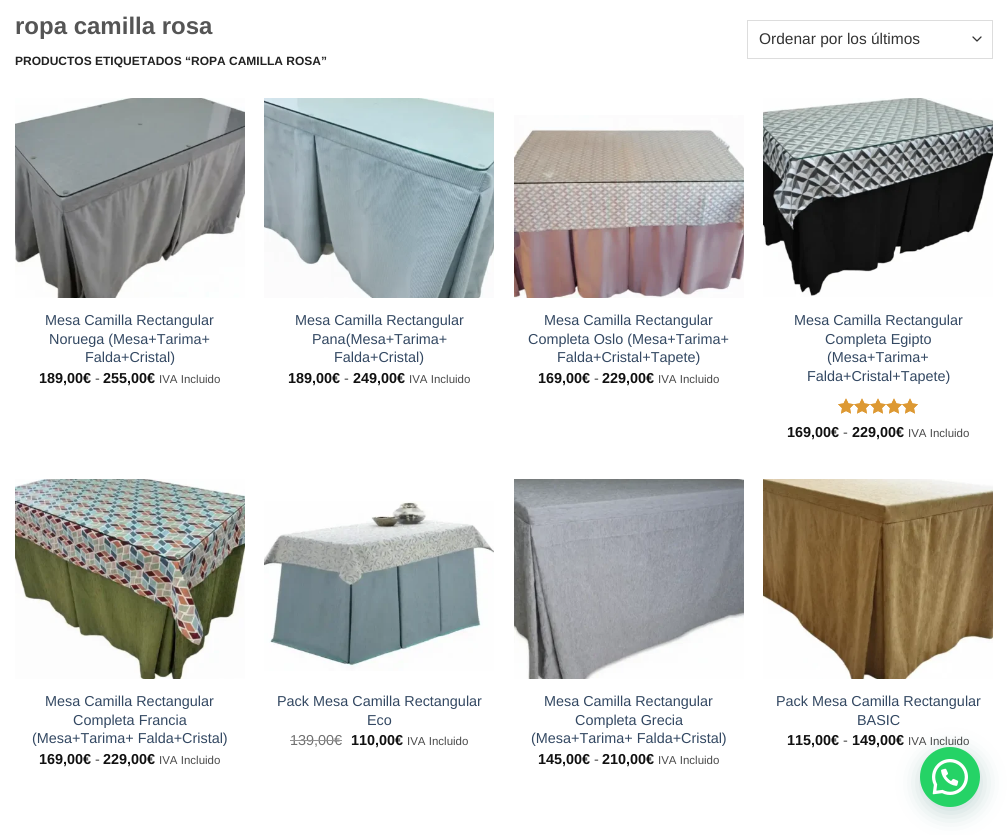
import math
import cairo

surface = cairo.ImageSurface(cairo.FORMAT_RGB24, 1008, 835)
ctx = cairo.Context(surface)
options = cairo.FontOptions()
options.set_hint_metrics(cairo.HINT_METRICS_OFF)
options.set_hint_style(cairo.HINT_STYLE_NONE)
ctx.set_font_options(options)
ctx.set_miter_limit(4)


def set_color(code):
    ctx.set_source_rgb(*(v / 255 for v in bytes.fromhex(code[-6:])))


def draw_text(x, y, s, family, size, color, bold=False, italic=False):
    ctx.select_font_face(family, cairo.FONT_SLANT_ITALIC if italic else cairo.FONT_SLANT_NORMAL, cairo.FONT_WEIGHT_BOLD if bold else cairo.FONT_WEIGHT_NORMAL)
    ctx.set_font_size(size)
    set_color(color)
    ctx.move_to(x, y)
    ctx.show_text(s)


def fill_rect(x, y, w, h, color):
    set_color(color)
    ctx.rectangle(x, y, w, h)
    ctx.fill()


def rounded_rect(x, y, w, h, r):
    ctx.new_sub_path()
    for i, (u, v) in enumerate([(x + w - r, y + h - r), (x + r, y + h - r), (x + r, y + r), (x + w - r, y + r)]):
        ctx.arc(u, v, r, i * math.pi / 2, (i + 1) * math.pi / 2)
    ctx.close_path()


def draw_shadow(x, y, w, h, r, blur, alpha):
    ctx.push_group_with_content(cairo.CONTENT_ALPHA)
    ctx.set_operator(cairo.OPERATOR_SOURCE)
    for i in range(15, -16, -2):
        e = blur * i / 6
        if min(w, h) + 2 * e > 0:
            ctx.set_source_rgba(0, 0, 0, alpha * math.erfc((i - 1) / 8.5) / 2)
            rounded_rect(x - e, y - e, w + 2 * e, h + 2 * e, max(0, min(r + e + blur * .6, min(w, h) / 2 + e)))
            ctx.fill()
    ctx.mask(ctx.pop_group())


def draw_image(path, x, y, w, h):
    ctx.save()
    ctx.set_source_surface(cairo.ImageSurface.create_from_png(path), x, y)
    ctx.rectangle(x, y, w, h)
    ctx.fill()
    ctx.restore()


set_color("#ffffff")
ctx.paint()
draw_text(15, 34, "ropa camilla rosa", "Liberation Sans", 24, "#555555", bold=True)
draw_text(15, 65, "PRODUCTOS ETIQUETADOS “ROPA CAMILLA ROSA”", "Liberation Sans", 12, "#222222", bold=True)
ctx.new_path()
ctx.move_to(973, 37)
ctx.line_to(977, 41)
ctx.line_to(981, 37)
set_color("#333333")
ctx.set_line_width(1.3)
ctx.set_line_cap(cairo.LINE_CAP_ROUND)
ctx.set_line_join(cairo.LINE_JOIN_ROUND)
ctx.stroke()
ctx.rectangle(747.5, 20.5, 245, 38)
set_color("#dddddd")
ctx.set_line_width(1)
ctx.set_line_cap(cairo.LINE_CAP_BUTT)
ctx.set_line_join(cairo.LINE_JOIN_MITER)
ctx.stroke()
draw_text(759, 44, "Ordenar por los últimos", "Liberation Sans", 15.5, "#333333")
draw_image("assets/img1.png", 15, 98, 230, 200)
draw_text(45, 325, "Mesa Camilla Rectangular", "Liberation Sans", 14.4, "#334862")
draw_text(49, 344, "Noruega (Mesa+Tarima+", "Liberation Sans", 14.4, "#334862")
draw_text(85, 362, "Falda+Cristal)", "Liberation Sans", 14.4, "#334862")
draw_text(39, 383, "189,00€", "Liberation Sans", 14.4, "#111111", bold=True)
draw_text(95, 383, "-", "Liberation Sans", 14.4, "#4a4a4a")
draw_text(103, 383, "255,00€", "Liberation Sans", 14.4, "#111111", bold=True)
draw_text(159, 383, "IVA Incluido", "Liberation Sans", 11.5, "#4a4a4a")
draw_image("assets/img2.png", 264, 98, 230, 200)
draw_text(295, 325, "Mesa Camilla Rectangular", "Liberation Sans", 14.4, "#334862")
draw_text(312, 344, "Pana(Mesa+Tarima+", "Liberation Sans", 14.4, "#334862")
draw_text(334, 362, "Falda+Cristal)", "Liberation Sans", 14.4, "#334862")
draw_text(288, 383, "189,00€", "Liberation Sans", 14.4, "#111111", bold=True)
draw_text(344, 383, "-", "Liberation Sans", 14.4, "#4a4a4a")
draw_text(353, 383, "249,00€", "Liberation Sans", 14.4, "#111111", bold=True)
draw_text(409, 383, "IVA Incluido", "Liberation Sans", 11.5, "#4a4a4a")
draw_image("assets/img3.png", 514, 115, 230, 183)
draw_text(544, 325, "Mesa Camilla Rectangular", "Liberation Sans", 14.4, "#334862")
draw_text(528, 344, "Completa Oslo (Mesa+Tarima+", "Liberation Sans", 14.4, "#334862")
draw_text(557, 362, "Falda+Cristal+Tapete)", "Liberation Sans", 14.4, "#334862")
draw_text(538, 383, "169,00€", "Liberation Sans", 14.4, "#111111", bold=True)
draw_text(594, 383, "-", "Liberation Sans", 14.4, "#4a4a4a")
draw_text(602, 383, "229,00€", "Liberation Sans", 14.4, "#111111", bold=True)
draw_text(658, 383, "IVA Incluido", "Liberation Sans", 11.5, "#4a4a4a")
draw_image("assets/img4.png", 763, 98, 230, 199)
draw_text(794, 325, "Mesa Camilla Rectangular", "Liberation Sans", 14.4, "#334862")
draw_text(825, 344, "Completa Egipto", "Liberation Sans", 14.4, "#334862")
draw_text(827, 362, "(Mesa+Tarima+", "Liberation Sans", 14.4, "#334862")
draw_text(807, 381, "Falda+Cristal+Tapete)", "Liberation Sans", 14.4, "#334862")
draw_image("assets/img5.png", 838, 398, 80, 16)
draw_image("assets/img6.png", 838, 398, 80, 16)
draw_text(787, 437, "169,00€", "Liberation Sans", 14.4, "#111111", bold=True)
draw_text(843, 437, "-", "Liberation Sans", 14.4, "#4a4a4a")
draw_text(852, 437, "229,00€", "Liberation Sans", 14.4, "#111111", bold=True)
draw_text(908, 437, "IVA Incluido", "Liberation Sans", 11.5, "#4a4a4a")
draw_image("assets/img7.png", 15, 479, 230, 200)
draw_text(45, 706, "Mesa Camilla Rectangular", "Liberation Sans", 14.4, "#334862")
draw_text(73, 725, "Completa Francia", "Liberation Sans", 14.4, "#334862")
draw_text(32, 743, "(Mesa+Tarima+ Falda+Cristal)", "Liberation Sans", 14.4, "#334862")
draw_text(39, 764, "169,00€", "Liberation Sans", 14.4, "#111111", bold=True)
draw_text(95, 764, "-", "Liberation Sans", 14.4, "#4a4a4a")
draw_text(103, 764, "229,00€", "Liberation Sans", 14.4, "#111111", bold=True)
draw_text(159, 764, "IVA Incluido", "Liberation Sans", 11.5, "#4a4a4a")
draw_image("assets/img8.png", 264, 501, 230, 170)
draw_text(277, 706, "Pack Mesa Camilla Rectangular", "Liberation Sans", 14.4, "#334862")
draw_text(367, 725, "Eco", "Liberation Sans", 14.4, "#334862")
draw_text(290, 745, "139,00€", "Liberation Sans", 14.4, "#707070")
fill_rect(290, 740, 52, 1, "#929292")
draw_text(351, 745, "110,00€", "Liberation Sans", 14.4, "#111111", bold=True)
draw_text(407, 745, "IVA Incluido", "Liberation Sans", 11.5, "#4a4a4a")
draw_image("assets/img9.png", 514, 479, 230, 200)
draw_text(544, 706, "Mesa Camilla Rectangular", "Liberation Sans", 14.4, "#334862")
draw_text(575, 725, "Completa Grecia", "Liberation Sans", 14.4, "#334862")
draw_text(531, 743, "(Mesa+Tarima+ Falda+Cristal)", "Liberation Sans", 14.4, "#334862")
draw_text(538, 764, "145,00€", "Liberation Sans", 14.4, "#111111", bold=True)
draw_text(594, 764, "-", "Liberation Sans", 14.4, "#4a4a4a")
draw_text(602, 764, "210,00€", "Liberation Sans", 14.4, "#111111", bold=True)
draw_text(658, 764, "IVA Incluido", "Liberation Sans", 11.5, "#4a4a4a")
draw_image("assets/img10.png", 763, 479, 230, 200)
draw_text(776, 706, "Pack Mesa Camilla Rectangular", "Liberation Sans", 14.4, "#334862")
draw_text(857, 725, "BASIC", "Liberation Sans", 14.4, "#334862")
draw_text(787, 745, "115,00€", "Liberation Sans", 14.4, "#111111", bold=True)
draw_text(843, 745, "-", "Liberation Sans", 14.4, "#4a4a4a")
draw_text(852, 745, "149,00€", "Liberation Sans", 14.4, "#111111", bold=True)
draw_text(908, 745, "IVA Incluido", "Liberation Sans", 11.5, "#4a4a4a")
set_color("#075e54")
draw_shadow(921, 753, 60, 60, 30, 12, 0.24)
set_color("#25d366")
ctx.arc(950, 777, 30, 0, 2 * math.pi)
ctx.fill()
draw_image("assets/img11.png", 932, 759, 36, 36)
surface.write_to_png("output.png")
